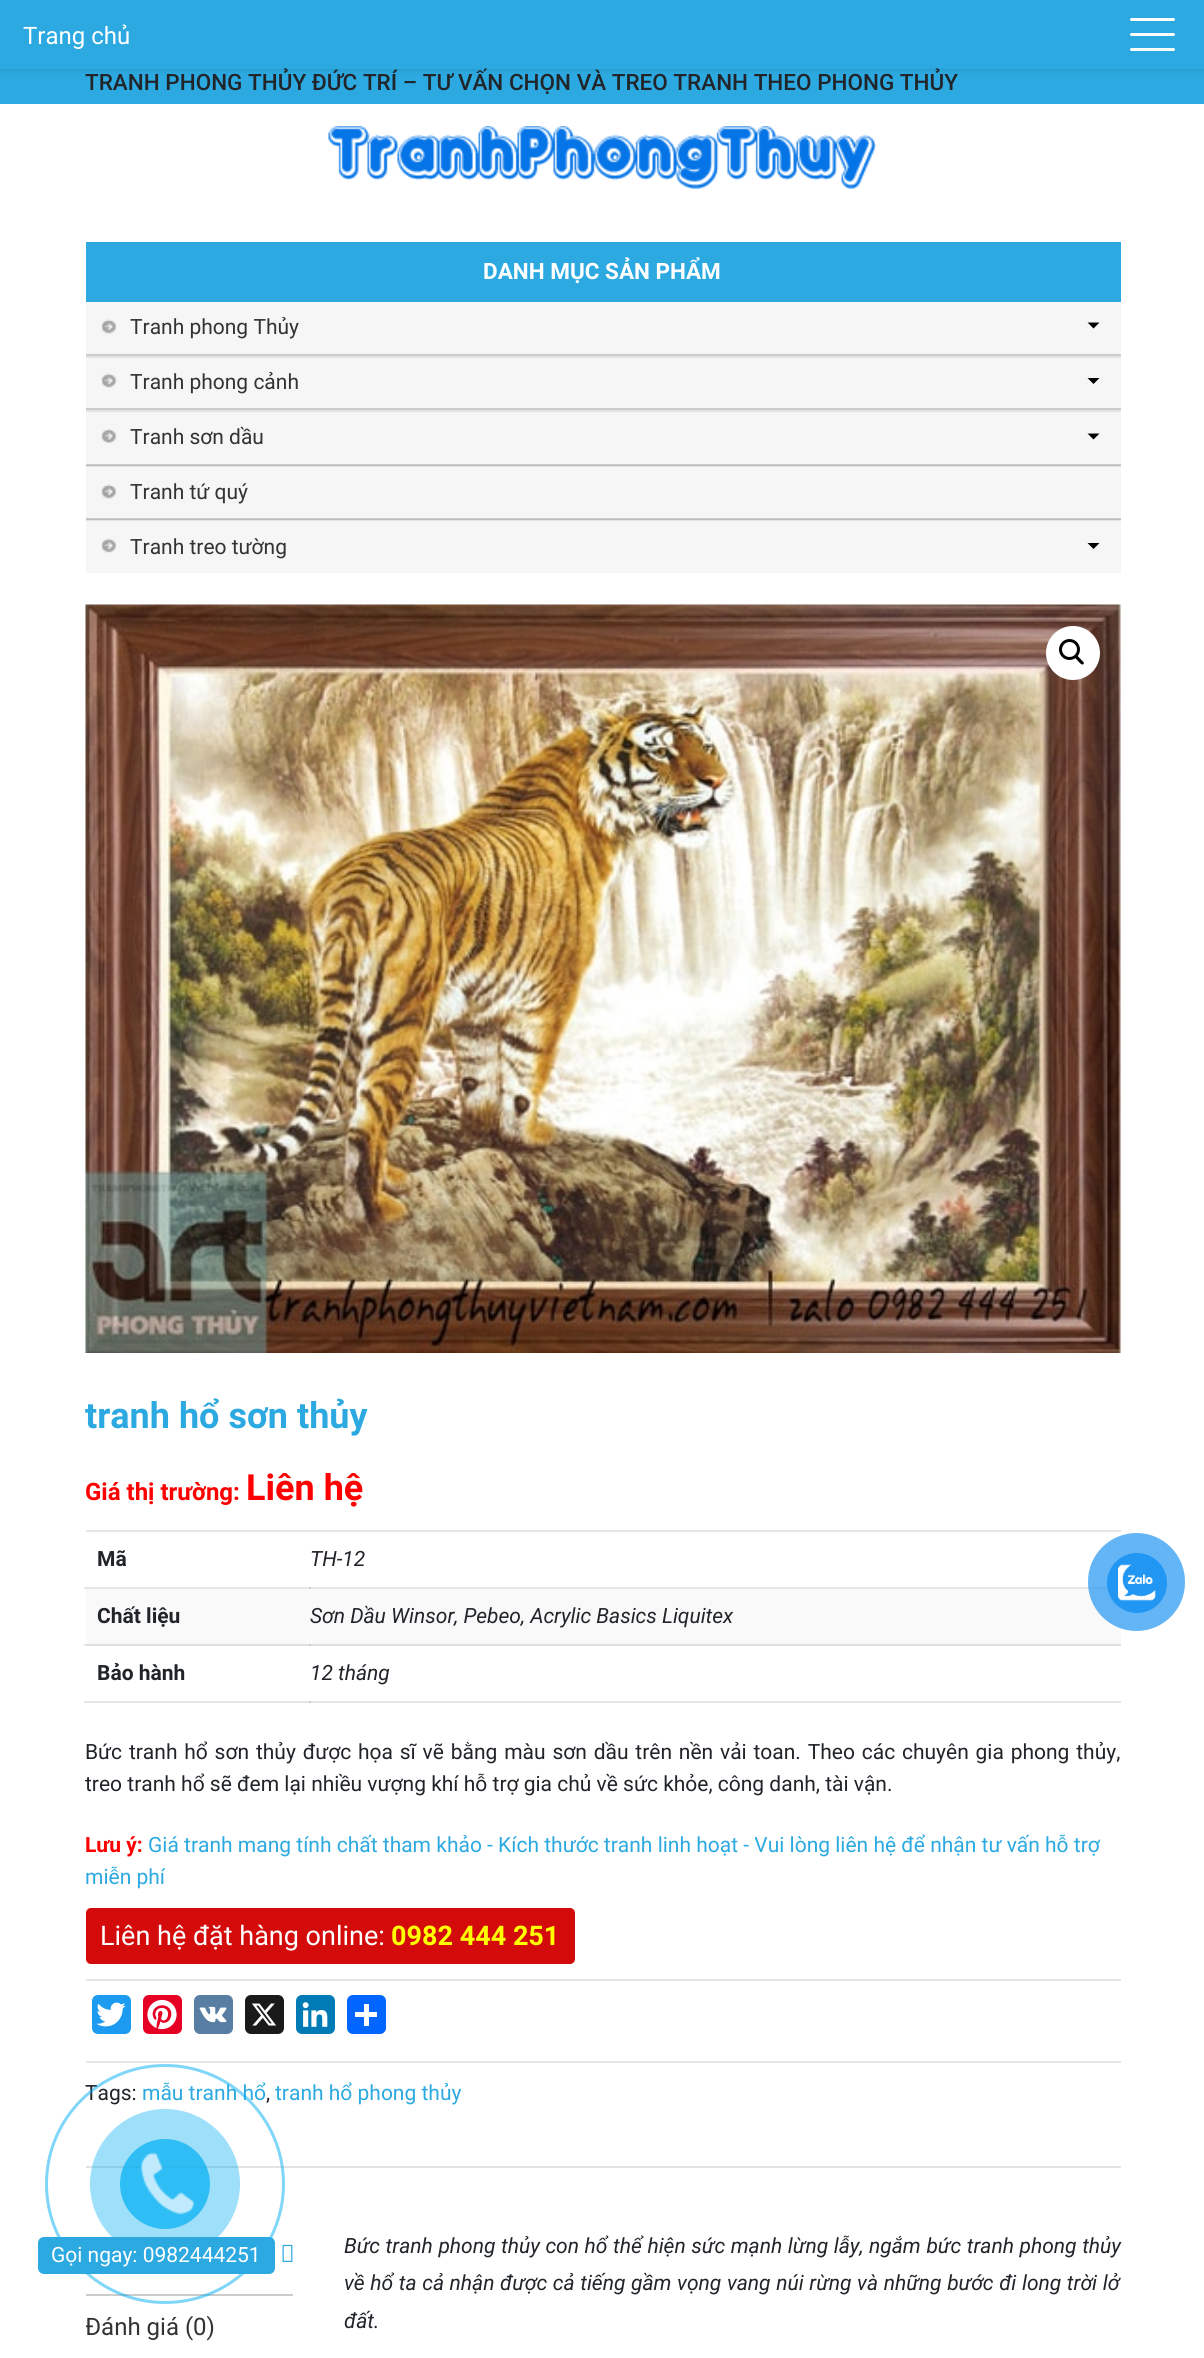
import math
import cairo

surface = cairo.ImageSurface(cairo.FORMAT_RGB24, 1204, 2358)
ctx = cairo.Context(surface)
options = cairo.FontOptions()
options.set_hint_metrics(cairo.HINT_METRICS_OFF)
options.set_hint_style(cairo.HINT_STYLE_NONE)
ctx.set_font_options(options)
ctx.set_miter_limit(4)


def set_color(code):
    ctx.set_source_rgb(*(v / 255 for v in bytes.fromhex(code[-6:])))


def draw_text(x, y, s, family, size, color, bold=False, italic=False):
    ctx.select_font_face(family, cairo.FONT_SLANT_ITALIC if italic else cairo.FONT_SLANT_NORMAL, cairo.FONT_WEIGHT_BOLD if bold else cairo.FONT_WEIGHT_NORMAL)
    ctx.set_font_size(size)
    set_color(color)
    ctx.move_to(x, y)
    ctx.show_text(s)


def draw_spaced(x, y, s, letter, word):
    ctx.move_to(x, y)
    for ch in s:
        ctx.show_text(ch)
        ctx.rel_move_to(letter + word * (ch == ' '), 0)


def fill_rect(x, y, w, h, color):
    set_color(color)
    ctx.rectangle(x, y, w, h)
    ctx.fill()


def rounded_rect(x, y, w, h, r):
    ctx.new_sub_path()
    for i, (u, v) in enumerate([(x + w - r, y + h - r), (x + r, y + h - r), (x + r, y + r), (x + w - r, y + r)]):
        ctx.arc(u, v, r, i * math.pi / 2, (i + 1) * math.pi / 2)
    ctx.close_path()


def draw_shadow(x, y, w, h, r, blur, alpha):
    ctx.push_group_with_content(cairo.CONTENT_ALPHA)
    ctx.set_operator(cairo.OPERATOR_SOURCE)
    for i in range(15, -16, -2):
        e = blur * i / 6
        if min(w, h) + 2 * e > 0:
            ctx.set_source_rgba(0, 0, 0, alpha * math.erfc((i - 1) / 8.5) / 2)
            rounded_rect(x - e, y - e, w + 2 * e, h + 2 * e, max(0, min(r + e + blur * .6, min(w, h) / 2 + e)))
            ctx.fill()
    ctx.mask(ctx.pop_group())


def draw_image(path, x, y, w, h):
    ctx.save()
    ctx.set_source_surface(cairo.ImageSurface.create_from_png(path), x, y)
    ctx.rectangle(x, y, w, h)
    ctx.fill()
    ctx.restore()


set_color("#ffffff")
ctx.paint()
fill_rect(84, 1587, 1024, 2, "#e6e6e6")
fill_rect(84, 1644, 2, 2, "#e6e6e6")
fill_rect(84, 1701, 1037, 2, "#e6e6e6")
fill_rect(0, 69, 1204, 35, "#2ca9e1")
set_color("#000000")
draw_shadow(0, 2, 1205, 69, 0, 2, 0.09)
fill_rect(0, 0, 1204, 69, "#2ca9e1")
draw_text(23, 44, "Trang chủ", "Roboto", 24, "#ffffff")
rounded_rect(1130, 48, 45, 3, 1.5)
ctx.fill()
rounded_rect(1130, 18, 45, 3, 1.5)
ctx.fill()
rounded_rect(1130, 33, 45, 3, 1.5)
ctx.fill()
draw_text(85, 90, "TRANH PHONG THỦY ĐỨC TRÍ – TƯ VẤN CHỌN VÀ TREO TRANH THEO PHONG THỦY", "Roboto Medium", 22.5, "#212529")
draw_image("assets/img1.png", 328, 126, 548, 63)
fill_rect(86, 242, 1035, 60, "#2ca9e1")
draw_text(483, 279, "DANH MỤC SẢN PHẨM", "Roboto", 22.5, "#ffffff", bold=True)
fill_rect(86, 302, 1035, 271, "#f6f6f6")
fill_rect(86, 520, 1035, 1, "#e3e3e3")
fill_rect(86, 466, 1035, 1, "#e3e3e3")
fill_rect(86, 354, 1035, 2, "#cccccc")
draw_image("assets/img2.png", 101, 319, 16, 15)
draw_text(130, 334, "Tranh phong Thủy", "Roboto", 21, "#333333")
fill_rect(86, 356, 1035, 2, "#e3e3e3")
set_color("#000000")
ctx.new_path()
ctx.move_to(1087.5, 322.5)
ctx.line_to(1099.5, 322.5)
ctx.line_to(1093.5, 328.5)
ctx.close_path()
ctx.move_to(1087.5, 378)
ctx.line_to(1099.5, 378)
ctx.line_to(1093.5, 384)
ctx.close_path()
ctx.fill()
fill_rect(86, 408, 1035, 2, "#cccccc")
draw_image("assets/img2.png", 101, 373, 16, 15)
draw_text(130, 389, "Tranh phong cảnh", "Roboto", 21, "#333333")
fill_rect(86, 410, 1035, 2, "#e3e3e3")
fill_rect(86, 464, 1035, 1, "#cccccc")
fill_rect(86, 465, 1035, 1, "#bdbdbd")
draw_image("assets/img3.png", 101, 429, 16, 14)
draw_text(130, 444, "Tranh sơn dầu", "Roboto", 21, "#333333")
set_color("#000000")
ctx.new_path()
ctx.move_to(1087.5, 433.5)
ctx.line_to(1099.5, 433.5)
ctx.line_to(1093.5, 439.5)
ctx.close_path()
ctx.fill()
fill_rect(86, 518, 1035, 1, "#cccccc")
fill_rect(86, 519, 1035, 1, "#bdbdbd")
draw_image("assets/img2.png", 101, 484, 16, 15)
draw_text(130, 499, "Tranh tứ quý", "Roboto", 21, "#333333")
draw_image("assets/img2.png", 101, 538, 16, 15)
draw_text(130, 554, "Tranh treo tường", "Roboto", 21, "#333333")
set_color("#000000")
ctx.new_path()
ctx.move_to(1087.5, 543)
ctx.line_to(1099.5, 543)
ctx.line_to(1093.5, 549)
ctx.close_path()
ctx.fill()
draw_image("assets/img4.png", 85, 604, 1036, 749)
set_color("#ffffff")
ctx.arc(1073, 653, 27, 0, 2 * math.pi)
ctx.fill()
ctx.arc(1069.5, 649.5, 9, 0, 2 * math.pi)
set_color("#000000")
ctx.set_line_width(3)
ctx.stroke()
ctx.new_path()
ctx.move_to(1075, 655.5)
ctx.curve_to(1076.5, 654, 1079.5, 658, 1080.5, 659)
ctx.curve_to(1081, 660, 1085, 662.5, 1083.5, 664)
ctx.curve_to(1082, 666, 1079, 662, 1078, 661)
ctx.curve_to(1077.5, 660, 1073.5, 657.5, 1075, 655.5)
ctx.close_path()
ctx.fill()
draw_text(85, 1428, "tranh hổ sơn thủy", "Roboto", 36, "#2ca9e1", bold=True)
draw_text(85, 1500, "Giá thị trường:", "Roboto", 24, "#ff0000", bold=True)
draw_text(246, 1500, "Liên hệ", "Roboto", 36, "#ff0000", bold=True)
fill_rect(86, 1530, 1035, 2, "#e6e6e6")
draw_text(97, 1566, "Mã", "Roboto", 21, "#212529", bold=True)
fill_rect(309, 1587, 2, 2, "#cfcfcf")
draw_text(310, 1566, "TH-12", "Roboto", 21, "#212529", italic=True)
fill_rect(86, 1589, 1035, 55, "#f9f9f9")
fill_rect(86, 1644, 1035, 2, "#e0e0e0")
draw_text(97, 1623, "Chất liệu", "Roboto", 21, "#212529", bold=True)
fill_rect(309, 1644, 2, 2, "#cacaca")
draw_text(310, 1623, "Sơn Dầu Winsor, Pebeo, Acrylic Basics Liquitex", "Roboto", 21, "#212529", italic=True)
draw_text(97, 1680, "Bảo hành", "Roboto", 21, "#212529", bold=True)
fill_rect(309, 1701, 2, 2, "#cfcfcf")
draw_text(310, 1680, "12 tháng", "Roboto", 21, "#212529", italic=True)
ctx.select_font_face("Roboto")
draw_spaced(85, 1759, "Bức tranh hổ sơn thủy được họa sĩ vẽ bằng màu sơn dầu trên nền vải toan. Theo các chuyên gia phong thủy,", 0, 1.6)
draw_text(85, 1791, "treo tranh hổ sẽ đem lại nhiều vượng khí hỗ trợ gia chủ về sức khỏe, công danh, tài vận.", "Roboto", 21, "#212529")
draw_text(85, 1852, "Lưu ý:", "Roboto", 21, "#ff0000", bold=True)
draw_text(148, 1852, "Giá tranh mang tính chất tham khảo - Kích thước tranh linh hoạt - Vui lòng liên hệ để nhận tư vấn hỗ trợ", "Roboto", 21, "#2ca9e1")
draw_text(85, 1884, "miễn phí", "Roboto", 21, "#2ca9e1")
set_color("#d40b0b")
rounded_rect(86, 1908, 489, 56, 5)
ctx.fill()
draw_text(100, 1945, "Liên hệ đặt hàng online:", "Roboto", 27, "#ffffff")
draw_text(391, 1945, "0982 444 251", "Roboto", 27, "#ffff00", bold=True)
fill_rect(86, 1979, 1035, 2, "#e6e6e6")
set_color("#1d9bf0")
rounded_rect(92, 1995, 39, 39, 6)
ctx.fill()
draw_image("assets/img5.png", 96, 2002, 30, 25)
set_color("#e60023")
rounded_rect(143, 1995, 39, 39, 6)
ctx.fill()
draw_image("assets/img6.png", 147, 1999, 30, 31)
set_color("#587ea3")
rounded_rect(194, 1995, 39, 39, 6)
ctx.fill()
draw_image("assets/img7.png", 199, 2006, 28, 17)
set_color("#1a1a1a")
rounded_rect(245, 1995, 39, 39, 6)
ctx.fill()
draw_image("assets/img8.png", 251, 2003, 25, 23)
set_color("#007bb5")
rounded_rect(296, 1995, 39, 39, 6)
ctx.fill()
draw_image("assets/img9.png", 302, 2002, 26, 25)
set_color("#0166ff")
rounded_rect(347, 1995, 39, 39, 6)
ctx.fill()
fill_rect(364, 2004, 5, 22, "#ffffff")
fill_rect(355, 2012, 22, 5, "#ffffff")
fill_rect(86, 2061, 1035, 2, "#e6e6e6")
draw_text(85, 2100, "Tags:", "Roboto", 21, "#212529")
draw_text(142, 2100, "mẫu tranh hổ", "Roboto", 21, "#2ca9e1")
draw_text(266, 2100, ",", "Roboto", 21, "#212529")
draw_text(275, 2100, "tranh hổ phong thủy", "Roboto", 21, "#2ca9e1")
fill_rect(86, 2166, 1035, 2, "#e3e3e3")
fill_rect(86, 2294, 207, 2, "#cccccc")
draw_image("assets/img10.png", 282, 2244, 11, 18)
ctx.save()
ctx.rectangle(86, 2228, 207, 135)
ctx.clip()
draw_text(85, 2335, "Đánh giá (0)", "Roboto", 24, "#333333")
ctx.restore()
ctx.select_font_face("Roboto", cairo.FONT_SLANT_ITALIC)
set_color("#212529")
draw_spaced(344, 2253, "Bức tranh phong thủy con hổ thể hiện sức mạnh lừng lẫy, ngắm bức tranh phong thủy", 0, 0.5)
draw_spaced(344, 2290, "về hổ ta cả nhận được cả tiếng gầm vọng vang núi rừng và những bước đi long trời lở", 0, 0.5)
draw_text(344, 2328, "đất.", "Roboto", 21, "#212529", italic=True)
ctx.new_path()
ctx.arc(165, 2184, 118.5, 0, 2 * math.pi)
ctx.set_source_rgba(0, 0.686, 0.949, 0.5)
ctx.stroke()
ctx.set_source_rgba(0, 0.686, 0.949, 0.38)
ctx.arc(165, 2184, 75, 0, 2 * math.pi)
ctx.fill()
ctx.set_source_rgba(0, 0.686, 0.949, 0.7)
ctx.arc(165, 2184, 45, 0, 2 * math.pi)
ctx.fill()
draw_image("assets/img11.png", 140, 2152, 54, 63)
set_color("#2ca9e1")
rounded_rect(38, 2237, 237, 37, 6)
ctx.fill()
draw_text(51, 2262, "Gọi ngay: 0982444251", "Roboto", 21, "#ffffff")
ctx.set_source_rgba(0.129, 0.588, 0.953, 0.7)
rounded_rect(1088, 1533, 97, 98, 48.5)
ctx.fill()
set_color("#2196f3")
ctx.arc(1137, 1583, 30, 0, 2 * math.pi)
ctx.fill()
draw_image("assets/img12.png", 1118, 1564, 38, 37)
surface.write_to_png("output.png")
